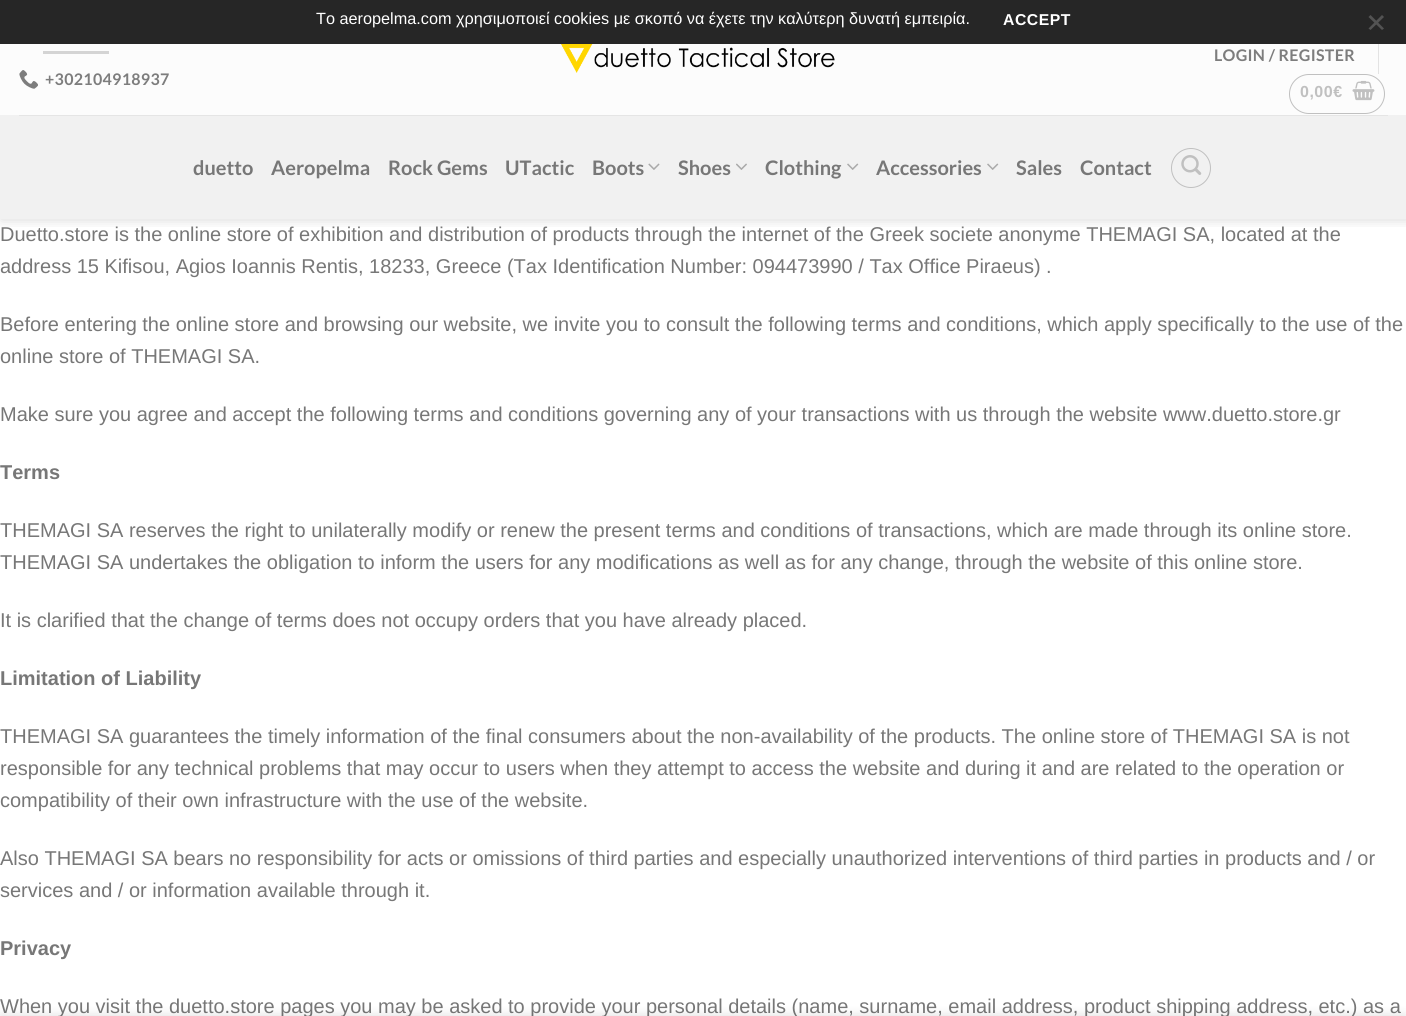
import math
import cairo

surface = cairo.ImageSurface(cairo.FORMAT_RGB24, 1406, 1016)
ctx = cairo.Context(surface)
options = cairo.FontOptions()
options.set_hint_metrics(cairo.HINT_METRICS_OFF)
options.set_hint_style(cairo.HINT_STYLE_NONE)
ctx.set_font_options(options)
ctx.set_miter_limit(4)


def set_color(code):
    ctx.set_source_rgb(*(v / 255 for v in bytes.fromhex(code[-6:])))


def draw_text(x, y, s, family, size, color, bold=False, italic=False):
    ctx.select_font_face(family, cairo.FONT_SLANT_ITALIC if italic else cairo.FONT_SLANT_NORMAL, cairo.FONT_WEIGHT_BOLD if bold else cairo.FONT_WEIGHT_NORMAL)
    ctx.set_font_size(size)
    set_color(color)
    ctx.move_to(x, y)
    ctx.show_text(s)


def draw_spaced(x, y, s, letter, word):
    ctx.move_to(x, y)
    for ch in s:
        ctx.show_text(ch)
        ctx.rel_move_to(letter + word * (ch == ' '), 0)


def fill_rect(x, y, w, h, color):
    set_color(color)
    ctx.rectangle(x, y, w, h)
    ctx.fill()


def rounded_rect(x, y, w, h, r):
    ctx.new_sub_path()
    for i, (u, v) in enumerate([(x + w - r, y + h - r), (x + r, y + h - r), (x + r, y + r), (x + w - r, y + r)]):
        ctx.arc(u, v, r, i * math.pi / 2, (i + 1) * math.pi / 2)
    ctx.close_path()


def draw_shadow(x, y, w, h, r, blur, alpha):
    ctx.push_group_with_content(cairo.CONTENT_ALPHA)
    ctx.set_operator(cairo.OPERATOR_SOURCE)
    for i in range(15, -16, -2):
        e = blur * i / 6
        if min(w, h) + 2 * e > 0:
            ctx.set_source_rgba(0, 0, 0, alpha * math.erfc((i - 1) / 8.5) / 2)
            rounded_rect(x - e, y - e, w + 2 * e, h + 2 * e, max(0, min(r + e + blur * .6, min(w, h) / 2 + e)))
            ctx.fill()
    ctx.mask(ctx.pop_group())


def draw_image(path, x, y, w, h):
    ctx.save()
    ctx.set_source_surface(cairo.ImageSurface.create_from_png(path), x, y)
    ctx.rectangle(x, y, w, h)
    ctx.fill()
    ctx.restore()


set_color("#ffffff")
ctx.paint()
ctx.save()
ctx.rectangle(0, 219, 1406, 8)
ctx.clip()
set_color("#000000")
draw_shadow(1, 1, 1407, 219, 0, 6, 0.15)
ctx.restore()
ctx.set_source_rgba(0.988, 0.988, 0.988, 0.9)
ctx.rectangle(0, 44, 1406, 71)
ctx.fill()
fill_rect(1378, 36, 1, 38, "#e3e3e3")
fill_rect(0, 0, 1406, 44, "#262626")
draw_text(316, 24, "Το aeropelma.com χρησιμοποιεί cookies με σκοπό να έχετε την καλύτερη δυνατή εμπειρία.", "Liberation Sans", 16.25, "#ffffff")
ctx.select_font_face("Liberation Sans", cairo.FONT_SLANT_NORMAL, cairo.FONT_WEIGHT_BOLD)
ctx.set_font_size(15.75)
draw_spaced(1003, 25, "ACCEPT", 0.5, 0)
set_color("#535353")
ctx.new_path()
ctx.move_to(1382, 15)
ctx.line_to(1384, 17)
ctx.line_to(1370.5, 30)
ctx.line_to(1368.5, 28.5)
ctx.close_path()
ctx.fill()
ctx.new_path()
ctx.move_to(1368.5, 17)
ctx.line_to(1370.5, 15)
ctx.line_to(1384, 28.5)
ctx.line_to(1382, 30)
ctx.close_path()
ctx.fill()
fill_rect(43, 51, 66, 3, "#d4d4d4")
draw_image("assets/img1.png", 19, 70, 19, 19)
ctx.select_font_face("Lato", cairo.FONT_SLANT_NORMAL, cairo.FONT_WEIGHT_BOLD)
ctx.set_font_size(16)
set_color("#7d7d7d")
draw_spaced(45, 85, "+302104918937", 0.3, 0)
draw_image("assets/img2.png", 560, 44, 275, 29)
draw_spaced(1214, 61, "LOGIN / REGISTER", 0.3, 0)
rounded_rect(1289.5, 74.5, 95, 39, 19.5)
set_color("#c0c0c0")
ctx.set_line_width(1)
ctx.stroke()
ctx.select_font_face("Liberation Sans", cairo.FONT_SLANT_NORMAL, cairo.FONT_WEIGHT_BOLD)
draw_spaced(1300, 97, "0,00€", 0.5, 0)
draw_image("assets/img3.png", 1352, 80, 23, 21)
fill_rect(0, 115, 1406, 104, "#f1f1f1")
fill_rect(19, 115, 1369, 1, "#e5e5e5")
draw_text(193, 175, "duetto", "Lato", 20, "#777777", bold=True)
draw_text(271, 175, "Aeropelma", "Lato", 20, "#777777", bold=True)
draw_text(388, 175, "Rock Gems", "Lato", 20, "#777777", bold=True)
draw_text(505, 175, "UTactic", "Lato", 20, "#777777", bold=True)
draw_text(592, 175, "Boots", "Lato", 20, "#777777", bold=True)
draw_image("assets/img4.png", 648, 163, 12, 7)
draw_text(678, 175, "Shoes", "Lato", 20, "#777777", bold=True)
draw_image("assets/img5.png", 736, 163, 11, 7)
draw_text(765, 175, "Clothing", "Lato", 20, "#777777", bold=True)
draw_image("assets/img6.png", 847, 163, 12, 7)
draw_text(876, 175, "Accessories", "Lato", 20, "#777777", bold=True)
draw_image("assets/img6.png", 987, 163, 12, 7)
draw_text(1016, 175, "Sales", "Lato", 20, "#777777", bold=True)
draw_text(1080, 175, "Contact", "Lato", 20, "#777777", bold=True)
ctx.new_path()
ctx.arc(1191, 168, 19.5, 0, 2 * math.pi)
set_color("#c0c0c0")
ctx.stroke()
draw_image("assets/img7.png", 1181, 155, 21, 20)
draw_text(0, 241, "Duetto.store is the online store of exhibition and distribution of products through the internet of the Greek societe anonyme THEMAGI SA, located at the", "Liberation Sans", 20, "#777777")
draw_text(0, 273, "address 15 Kifisou, Agios Ioannis Rentis, 18233, Greece (Tax Identification Number: 094473990 / Tax Office Piraeus) .", "Liberation Sans", 20, "#777777")
draw_text(0, 331, "Before entering the online store and browsing our website, we invite you to consult the following terms and conditions, which apply specifically to the use of the", "Liberation Sans", 20, "#777777")
draw_text(0, 363, "online store of THEMAGI SA.", "Liberation Sans", 20, "#777777")
draw_text(0, 421, "Make sure you agree and accept the following terms and conditions governing any of your transactions with us through the website www.duetto.store.gr", "Liberation Sans", 20, "#777777")
draw_text(0, 479, "Terms", "Liberation Sans", 20, "#777777", bold=True)
draw_text(0, 537, "THEMAGI SA reserves the right to unilaterally modify or renew the present terms and conditions of transactions, which are made through its online store.", "Liberation Sans", 20, "#777777")
draw_text(0, 569, "THEMAGI SA undertakes the obligation to inform the users for any modifications as well as for any change, through the website of this online store.", "Liberation Sans", 20, "#777777")
draw_text(0, 627, "It is clarified that the change of terms does not occupy orders that you have already placed.", "Liberation Sans", 20, "#777777")
draw_text(0, 685, "Limitation of Liability", "Liberation Sans", 20, "#777777", bold=True)
draw_text(0, 743, "THEMAGI SA guarantees the timely information of the final consumers about the non-availability of the products. The online store of THEMAGI SA is not", "Liberation Sans", 20, "#777777")
draw_text(0, 775, "responsible for any technical problems that may occur to users when they attempt to access the website and during it and are related to the operation or", "Liberation Sans", 20, "#777777")
draw_text(0, 807, "compatibility of their own infrastructure with the use of the website.", "Liberation Sans", 20, "#777777")
draw_text(0, 865, "Also THEMAGI SA bears no responsibility for acts or omissions of third parties and especially unauthorized interventions of third parties in products and / or", "Liberation Sans", 20, "#777777")
draw_text(0, 897, "services and / or information available through it.", "Liberation Sans", 20, "#777777")
draw_text(0, 955, "Privacy", "Liberation Sans", 20, "#777777", bold=True)
draw_text(0, 1013, "When you visit the duetto.store pages you may be asked to provide your personal details (name, surname, email address, product shipping address, etc.) as a", "Liberation Sans", 20, "#777777")
set_color("#000000")
draw_shadow(0, 1016, 1406, 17, 0, 5.5, 0.14)
surface.write_to_png("output.png")
